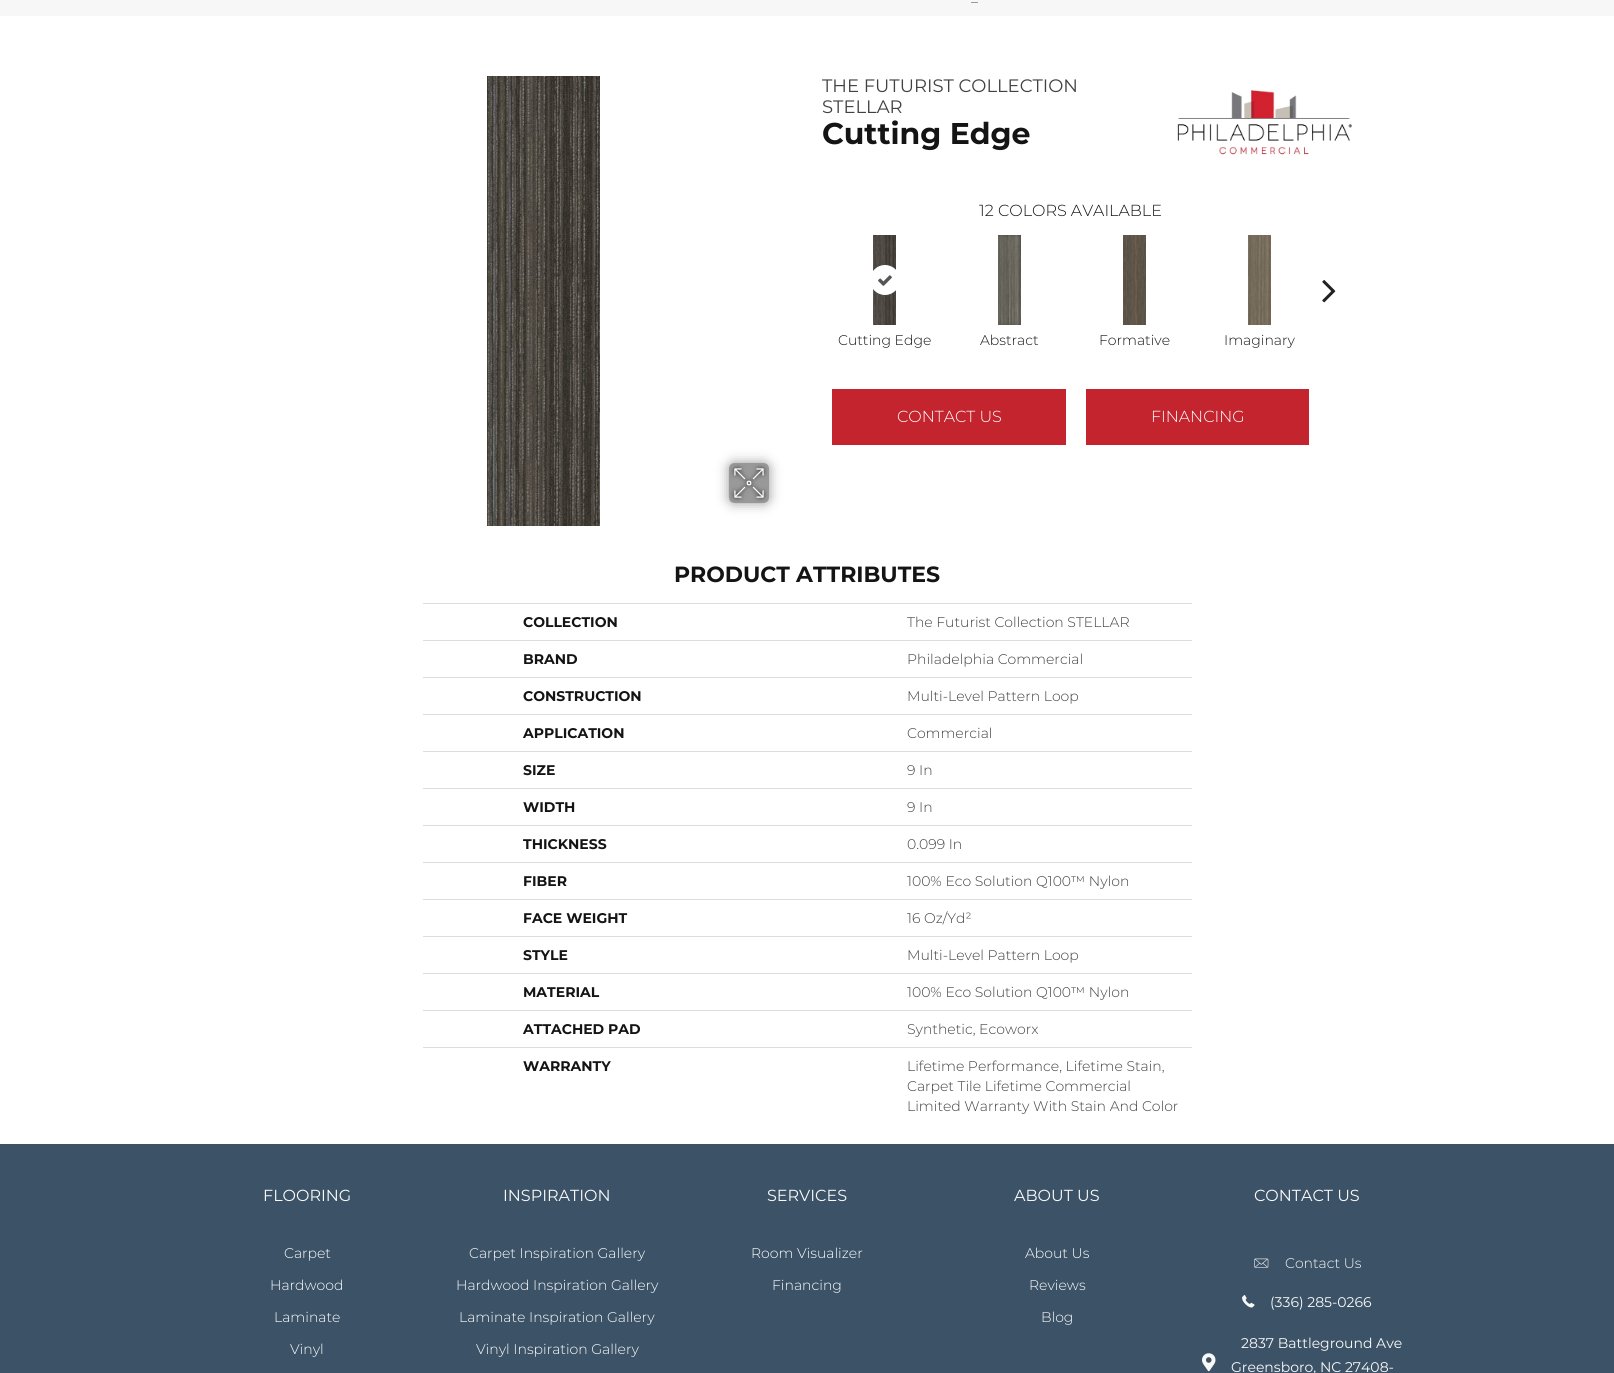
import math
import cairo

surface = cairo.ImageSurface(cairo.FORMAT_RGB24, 1614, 1373)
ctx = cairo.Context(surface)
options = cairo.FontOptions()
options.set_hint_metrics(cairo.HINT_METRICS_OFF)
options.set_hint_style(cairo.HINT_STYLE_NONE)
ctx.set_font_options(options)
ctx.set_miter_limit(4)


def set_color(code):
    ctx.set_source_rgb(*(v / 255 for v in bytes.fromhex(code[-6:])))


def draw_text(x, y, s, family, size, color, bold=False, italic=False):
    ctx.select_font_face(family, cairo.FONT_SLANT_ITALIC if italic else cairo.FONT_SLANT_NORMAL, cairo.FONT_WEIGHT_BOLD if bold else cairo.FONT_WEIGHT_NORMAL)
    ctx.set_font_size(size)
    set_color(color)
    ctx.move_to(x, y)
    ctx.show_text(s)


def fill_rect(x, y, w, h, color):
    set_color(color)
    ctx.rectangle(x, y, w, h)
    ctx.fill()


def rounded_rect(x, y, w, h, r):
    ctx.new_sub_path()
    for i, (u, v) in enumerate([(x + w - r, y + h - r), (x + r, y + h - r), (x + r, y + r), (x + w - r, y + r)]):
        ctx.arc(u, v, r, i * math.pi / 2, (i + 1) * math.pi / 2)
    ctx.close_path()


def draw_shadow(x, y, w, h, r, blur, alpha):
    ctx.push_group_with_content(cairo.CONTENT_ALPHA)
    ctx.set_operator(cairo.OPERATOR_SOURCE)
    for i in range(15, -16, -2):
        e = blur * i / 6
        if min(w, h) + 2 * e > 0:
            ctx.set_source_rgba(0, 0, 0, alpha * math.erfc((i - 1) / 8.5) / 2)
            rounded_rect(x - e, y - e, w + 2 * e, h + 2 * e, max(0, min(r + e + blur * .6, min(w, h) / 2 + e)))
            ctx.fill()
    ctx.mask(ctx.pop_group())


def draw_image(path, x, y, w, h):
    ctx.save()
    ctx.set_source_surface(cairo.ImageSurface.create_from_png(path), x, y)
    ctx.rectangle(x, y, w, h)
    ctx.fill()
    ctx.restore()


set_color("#ffffff")
ctx.paint()
fill_rect(0, 0, 1614, 16, "#f7f7f7")
draw_text(971, 2, "_", "Montserrat Light", 14, "#414042")
draw_image("assets/img1.png", 487, 76, 113, 450)
ctx.save()
ctx.set_fill_rule(cairo.FILL_RULE_EVEN_ODD)
ctx.new_path()
ctx.move_to(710, 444)
ctx.line_to(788, 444)
ctx.line_to(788, 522)
ctx.line_to(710, 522)
ctx.close_path()
ctx.move_to(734, 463)
ctx.line_to(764, 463)
ctx.curve_to(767, 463, 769, 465, 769, 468)
ctx.line_to(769, 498)
ctx.curve_to(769, 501, 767, 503, 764, 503)
ctx.line_to(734, 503)
ctx.curve_to(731, 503, 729, 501, 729, 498)
ctx.line_to(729, 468)
ctx.curve_to(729, 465, 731, 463, 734, 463)
ctx.close_path()
ctx.clip()
set_color("#000000")
draw_shadow(729, 463, 40, 40, 5, 6, 0.41)
ctx.restore()
ctx.set_source_rgba(0, 0, 0, 0.4)
rounded_rect(729, 463, 40, 40, 5)
ctx.fill()
draw_image("assets/img2.png", 730, 464, 38, 38)
draw_text(822, 92, "THE FUTURIST COLLECTION", "Montserrat", 18, "#414042")
draw_text(822, 113, "STELLAR", "Montserrat", 18, "#414042")
draw_text(822, 144, "Cutting Edge", "Montserrat", 30, "#141414", bold=True)
draw_image("assets/img3.png", 1177, 90, 175, 65)
draw_text(979, 216, "12", "Montserrat Light", 16, "#141414")
draw_text(998, 216, "COLORS AVAILABLE", "Montserrat Light", 16, "#141414")
draw_image("assets/img4.png", 1322, 280, 14, 23)
draw_image("assets/img5.png", 873, 235, 23, 90)
set_color("#ffffff")
ctx.arc(885, 280, 15, 0, 2 * math.pi)
ctx.fill()
draw_image("assets/img6.png", 878, 275, 14, 11)
draw_text(838, 345, "Cutting Edge", "Montserrat Light", 14, "#141414")
draw_image("assets/img7.png", 998, 235, 23, 90)
draw_text(980, 345, "Abstract", "Montserrat Light", 14, "#141414")
draw_image("assets/img8.png", 1123, 235, 23, 90)
draw_text(1099, 345, "Formative", "Montserrat Light", 14, "#141414")
draw_image("assets/img9.png", 1248, 235, 23, 90)
draw_text(1224, 345, "Imaginary", "Montserrat Light", 14, "#141414")
fill_rect(832, 389, 234, 56, "#c3242d")
draw_text(897, 422, "CONTACT US", "Montserrat Light", 16, "#ffffff")
fill_rect(1086, 389, 223, 56, "#c3242d")
draw_text(1151, 422, "FINANCING", "Montserrat Light", 16, "#ffffff")
draw_text(674, 582, "PRODUCT ATTRIBUTES", "Montserrat", 22, "#141414", bold=True)
draw_text(523, 627, "COLLECTION", "Montserrat", 14, "#141414", bold=True)
fill_rect(423, 603, 769, 1, "#dddddd")
draw_text(907, 627, "The Futurist Collection STELLAR", "Montserrat Light", 14, "#414042")
draw_text(523, 664, "BRAND", "Montserrat", 14, "#141414", bold=True)
fill_rect(423, 640, 769, 1, "#dddddd")
draw_text(907, 664, "Philadelphia Commercial", "Montserrat Light", 14, "#414042")
draw_text(523, 701, "CONSTRUCTION", "Montserrat", 14, "#141414", bold=True)
fill_rect(423, 677, 769, 1, "#dddddd")
draw_text(907, 701, "Multi-Level Pattern Loop", "Montserrat Light", 14, "#414042")
draw_text(523, 738, "APPLICATION", "Montserrat", 14, "#141414", bold=True)
fill_rect(423, 714, 769, 1, "#dddddd")
draw_text(907, 738, "Commercial", "Montserrat Light", 14, "#414042")
draw_text(523, 775, "SIZE", "Montserrat", 14, "#141414", bold=True)
fill_rect(423, 751, 769, 1, "#dddddd")
draw_text(907, 775, "9 In", "Montserrat Light", 14, "#414042")
draw_text(523, 812, "WIDTH", "Montserrat", 14, "#141414", bold=True)
fill_rect(423, 788, 769, 1, "#dddddd")
draw_text(907, 812, "9 In", "Montserrat Light", 14, "#414042")
draw_text(523, 849, "THICKNESS", "Montserrat", 14, "#141414", bold=True)
fill_rect(423, 825, 769, 1, "#dddddd")
draw_text(907, 849, "0.099 In", "Montserrat Light", 14, "#414042")
draw_text(523, 886, "FIBER", "Montserrat", 14, "#141414", bold=True)
fill_rect(423, 862, 769, 1, "#dddddd")
draw_text(907, 886, "100% Eco Solution Q100™ Nylon", "Montserrat Light", 14, "#414042")
draw_text(523, 923, "FACE WEIGHT", "Montserrat", 14, "#141414", bold=True)
fill_rect(423, 899, 769, 1, "#dddddd")
draw_text(907, 923, "16 Oz/Yd²", "Montserrat Light", 14, "#414042")
draw_text(523, 960, "STYLE", "Montserrat", 14, "#141414", bold=True)
fill_rect(423, 936, 769, 1, "#dddddd")
draw_text(907, 960, "Multi-Level Pattern Loop", "Montserrat Light", 14, "#414042")
draw_text(523, 997, "MATERIAL", "Montserrat", 14, "#141414", bold=True)
fill_rect(423, 973, 769, 1, "#dddddd")
draw_text(907, 997, "100% Eco Solution Q100™ Nylon", "Montserrat Light", 14, "#414042")
draw_text(523, 1034, "ATTACHED PAD", "Montserrat", 14, "#141414", bold=True)
fill_rect(423, 1010, 769, 1, "#dddddd")
draw_text(907, 1034, "Synthetic, Ecoworx", "Montserrat Light", 14, "#414042")
draw_text(523, 1071, "WARRANTY", "Montserrat", 14, "#141414", bold=True)
fill_rect(423, 1047, 769, 1, "#dddddd")
draw_text(907, 1071, "Lifetime Performance, Lifetime Stain,", "Montserrat Light", 14, "#414042")
draw_text(907, 1091, "Carpet Tile Lifetime Commercial", "Montserrat Light", 14, "#414042")
draw_text(907, 1111, "Limited Warranty With Stain And Color", "Montserrat Light", 14, "#414042")
fill_rect(0, 1144, 1614, 229, "#3b5267")
draw_text(263, 1201, "FLOORING", "Montserrat", 16, "#f9f9f8")
draw_text(284, 1258, "Carpet", "Montserrat Light", 14, "#ffffff")
draw_text(270, 1290, "Hardwood", "Montserrat Light", 14, "#ffffff")
draw_text(274, 1322, "Laminate", "Montserrat Light", 14, "#ffffff")
draw_text(290, 1354, "Vinyl", "Montserrat Light", 14, "#ffffff")
draw_text(503, 1201, "INSPIRATION", "Montserrat", 16, "#f9f9f8")
draw_text(469, 1258, "Carpet Inspiration Gallery", "Montserrat Light", 14, "#ffffff")
draw_text(456, 1290, "Hardwood Inspiration Gallery", "Montserrat Light", 14, "#ffffff")
draw_text(459, 1322, "Laminate Inspiration Gallery", "Montserrat Light", 14, "#ffffff")
draw_text(476, 1354, "Vinyl Inspiration Gallery", "Montserrat Light", 14, "#ffffff")
draw_text(767, 1201, "SERVICES", "Montserrat", 16, "#f9f9f8")
draw_text(751, 1258, "Room Visualizer", "Montserrat Light", 14, "#ffffff")
draw_text(772, 1290, "Financing", "Montserrat Light", 14, "#ffffff")
draw_text(1014, 1201, "ABOUT US", "Montserrat", 16, "#f9f9f8")
draw_text(1025, 1258, "About Us", "Montserrat Light", 14, "#ffffff")
draw_text(1029, 1290, "Reviews", "Montserrat Light", 14, "#ffffff")
draw_text(1041, 1322, "Blog", "Montserrat Light", 14, "#ffffff")
draw_text(1254, 1201, "CONTACT US", "Montserrat", 16, "#f9f9f8")
draw_image("assets/img10.png", 1254, 1258, 15, 10)
draw_text(1285, 1268, "Contact Us", "Montserrat Light", 14, "#f9f9f8")
draw_image("assets/img11.png", 1242, 1295, 13, 13)
draw_text(1270, 1307, "(336) 285-0266", "Montserrat", 14, "#f9f9f8")
draw_image("assets/img12.png", 1202, 1353, 14, 19)
draw_text(1241, 1348, "2837 Battleground Ave", "Montserrat", 14, "#f9f9f8")
draw_text(1231, 1372, "Greensboro, NC 27408-", "Montserrat", 14, "#f9f9f8")
surface.write_to_png("output.png")
